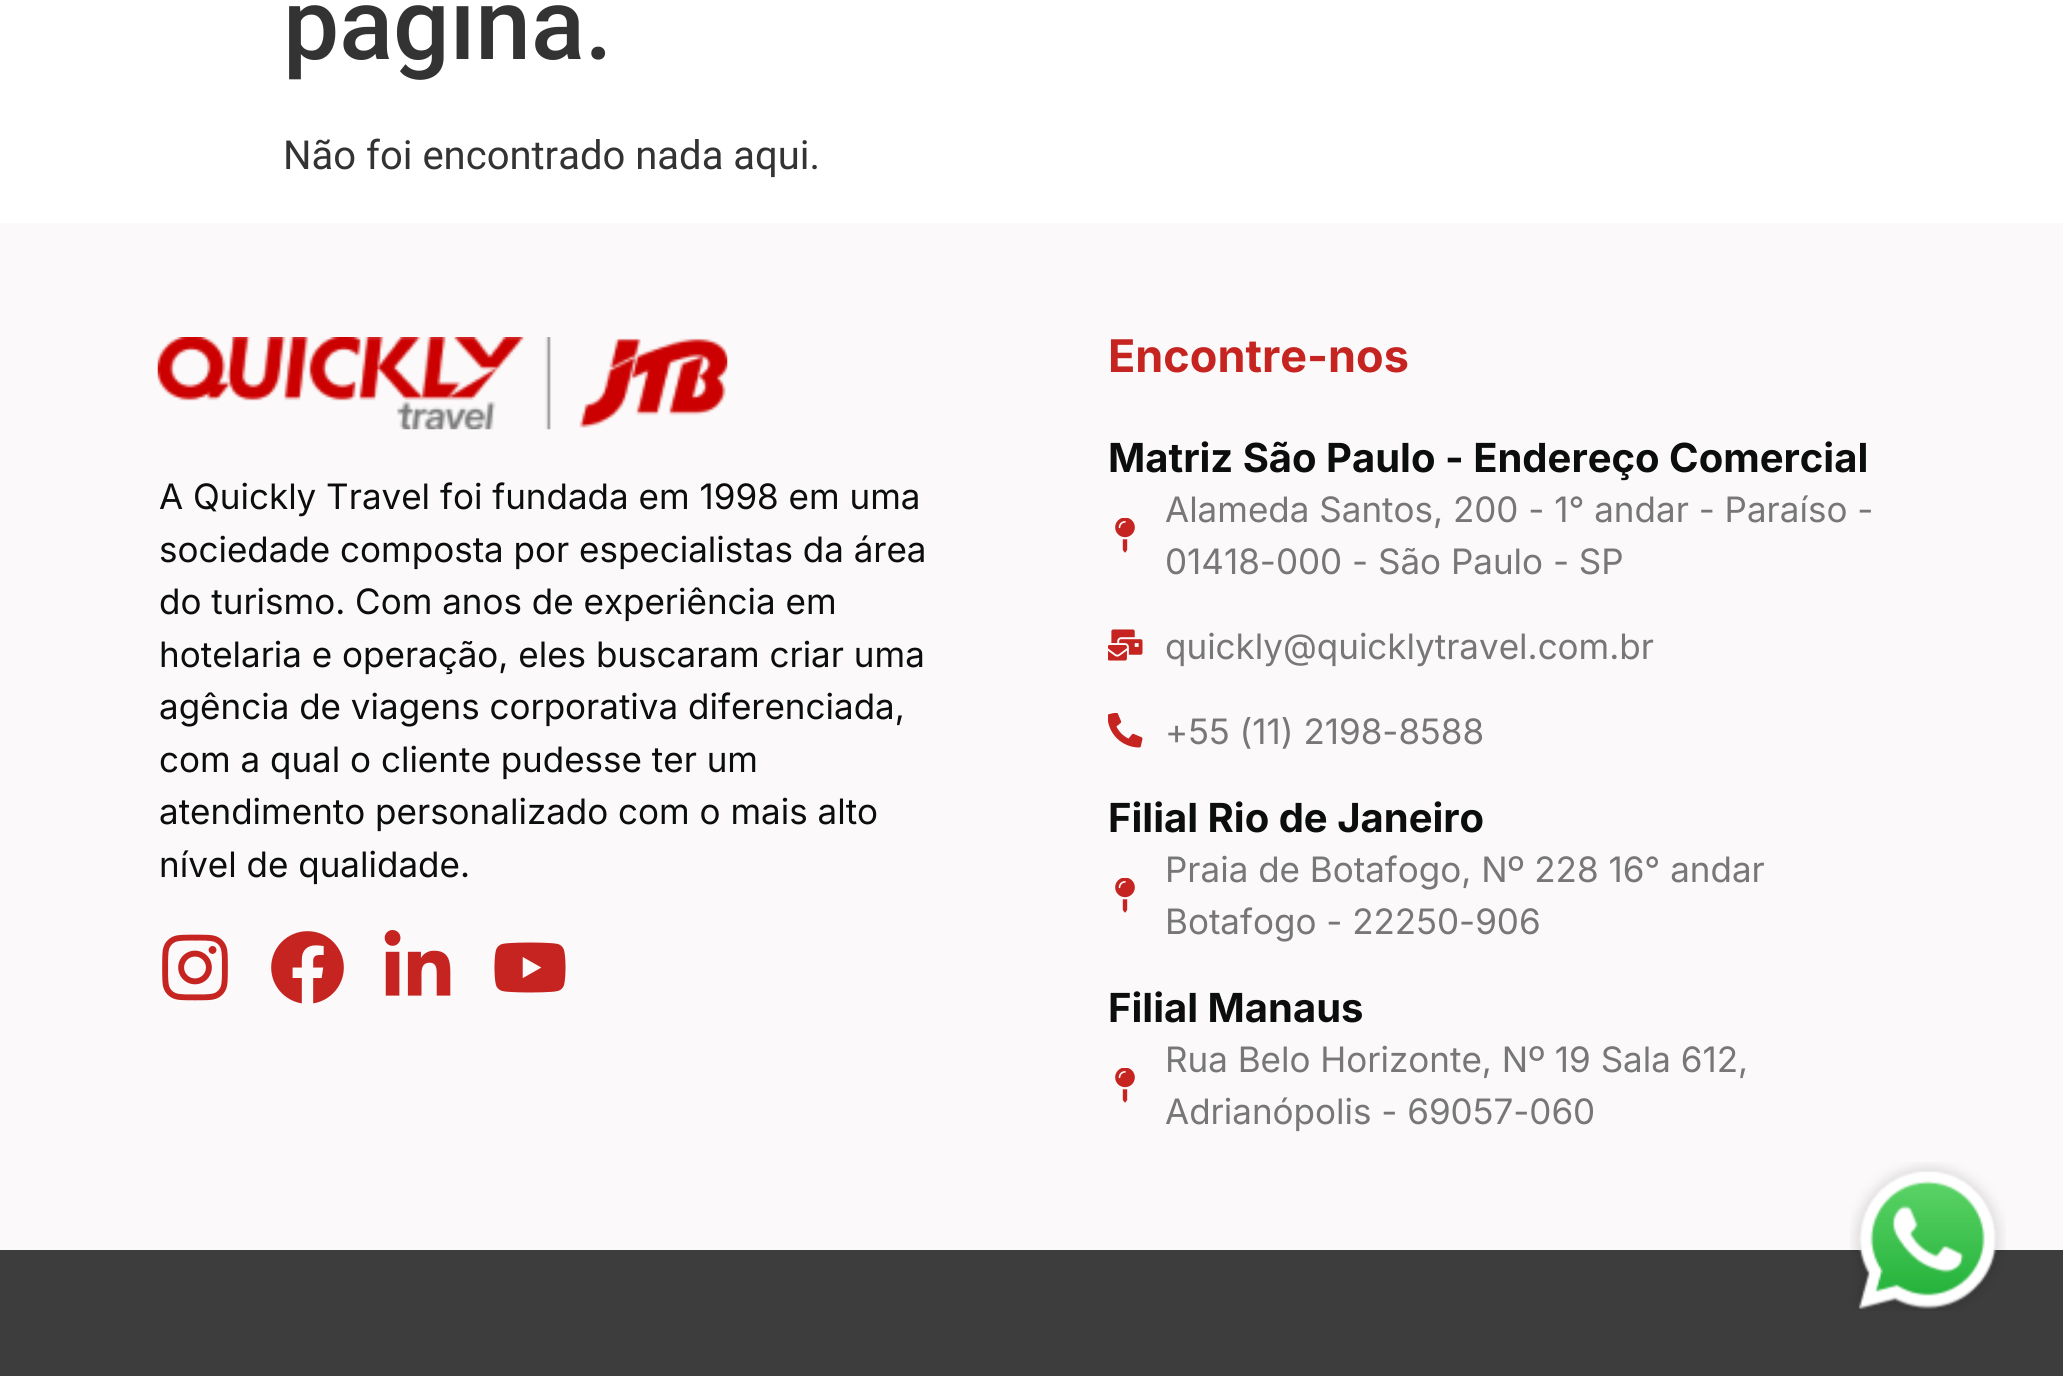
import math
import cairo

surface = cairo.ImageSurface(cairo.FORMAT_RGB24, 2063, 1376)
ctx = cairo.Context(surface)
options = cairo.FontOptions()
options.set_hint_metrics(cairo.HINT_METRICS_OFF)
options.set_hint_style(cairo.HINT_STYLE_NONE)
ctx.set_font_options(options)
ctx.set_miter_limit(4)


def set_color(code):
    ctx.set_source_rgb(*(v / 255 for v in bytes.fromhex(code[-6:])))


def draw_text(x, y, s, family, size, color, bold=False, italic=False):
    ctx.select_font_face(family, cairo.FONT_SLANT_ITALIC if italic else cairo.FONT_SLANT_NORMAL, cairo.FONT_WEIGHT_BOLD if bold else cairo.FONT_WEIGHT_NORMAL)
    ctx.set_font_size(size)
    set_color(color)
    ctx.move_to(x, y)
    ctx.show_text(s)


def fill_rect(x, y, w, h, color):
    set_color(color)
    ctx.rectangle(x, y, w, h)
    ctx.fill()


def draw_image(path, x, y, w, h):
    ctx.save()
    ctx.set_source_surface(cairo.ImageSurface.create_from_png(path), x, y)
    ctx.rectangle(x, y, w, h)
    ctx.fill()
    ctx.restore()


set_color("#ffffff")
ctx.paint()
draw_text(283, 59, "página.", "Roboto Medium", 100, "#333333")
draw_text(283, 169, "Não foi encontrado nada aqui.", "Roboto", 40, "#333333")
fill_rect(0, 223, 2063, 1027, "#fbf9f9")
draw_image("assets/img1.png", 157, 337, 571, 93)
draw_text(159, 509, "A Quickly Travel foi fundada em 1998 em uma", "Inter", 35, "#0c0d0d")
draw_text(159, 562, "sociedade composta por especialistas da área", "Inter", 35, "#0c0d0d")
draw_text(159, 614, "do turismo. Com anos de experiência em", "Inter", 35, "#0c0d0d")
draw_text(159, 667, "hotelaria e operação, eles buscaram criar uma", "Inter", 35, "#0c0d0d")
draw_text(159, 719, "agência de viagens corporativa diferenciada,", "Inter", 35, "#0c0d0d")
draw_text(159, 772, "com a qual o cliente pudesse ter um", "Inter", 35, "#0c0d0d")
draw_text(159, 824, "atendimento personalizado com o mais alto", "Inter", 35, "#0c0d0d")
draw_text(159, 877, "nível de qualidade.", "Inter", 35, "#0c0d0d")
draw_image("assets/img2.png", 162, 934, 66, 67)
draw_image("assets/img3.png", 271, 931, 73, 73)
draw_image("assets/img4.png", 384, 930, 67, 66)
draw_image("assets/img5.png", 494, 942, 72, 51)
draw_text(1108, 372, "Encontre-nos", "Inter", 45, "#c52420", bold=True)
draw_text(1108, 472, "Matriz São Paulo - Endereço Comercial", "Inter", 40, "#0c0d0d", bold=True)
draw_image("assets/img6.png", 1115, 518, 20, 35)
draw_text(1165, 522, "Alameda Santos, 200 - 1° andar - Paraíso -", "Inter", 35, "#777777")
draw_text(1165, 574, "01418-000 - São Paulo - SP", "Inter", 35, "#777777")
draw_image("assets/img7.png", 1108, 629, 35, 32)
draw_text(1165, 659, "quickly@quicklytravel.com.br", "Inter", 35, "#777777")
draw_image("assets/img8.png", 1108, 713, 35, 35)
draw_text(1165, 744, "+55 (11) 2198-8588", "Inter", 35, "#777777")
draw_text(1108, 832, "Filial Rio de Janeiro", "Inter", 40, "#0c0d0d", bold=True)
draw_image("assets/img6.png", 1115, 878, 20, 35)
draw_text(1165, 882, "Praia de Botafogo, Nº 228 16° andar", "Inter", 35, "#777777")
draw_text(1165, 934, "Botafogo - 22250-906", "Inter", 35, "#777777")
draw_text(1108, 1022, "Filial Manaus", "Inter", 40, "#0c0d0d", bold=True)
draw_image("assets/img6.png", 1115, 1068, 20, 35)
draw_text(1165, 1072, "Rua Belo Horizonte, Nº 19 Sala 612,", "Inter", 35, "#777777")
draw_text(1165, 1124, "Adrianópolis - 69057-060", "Inter", 35, "#777777")
fill_rect(0, 1250, 2063, 126, "#3d3d3d")
draw_image("assets/img9.png", 1850, 1162, 156, 149)
surface.write_to_png("output.png")
